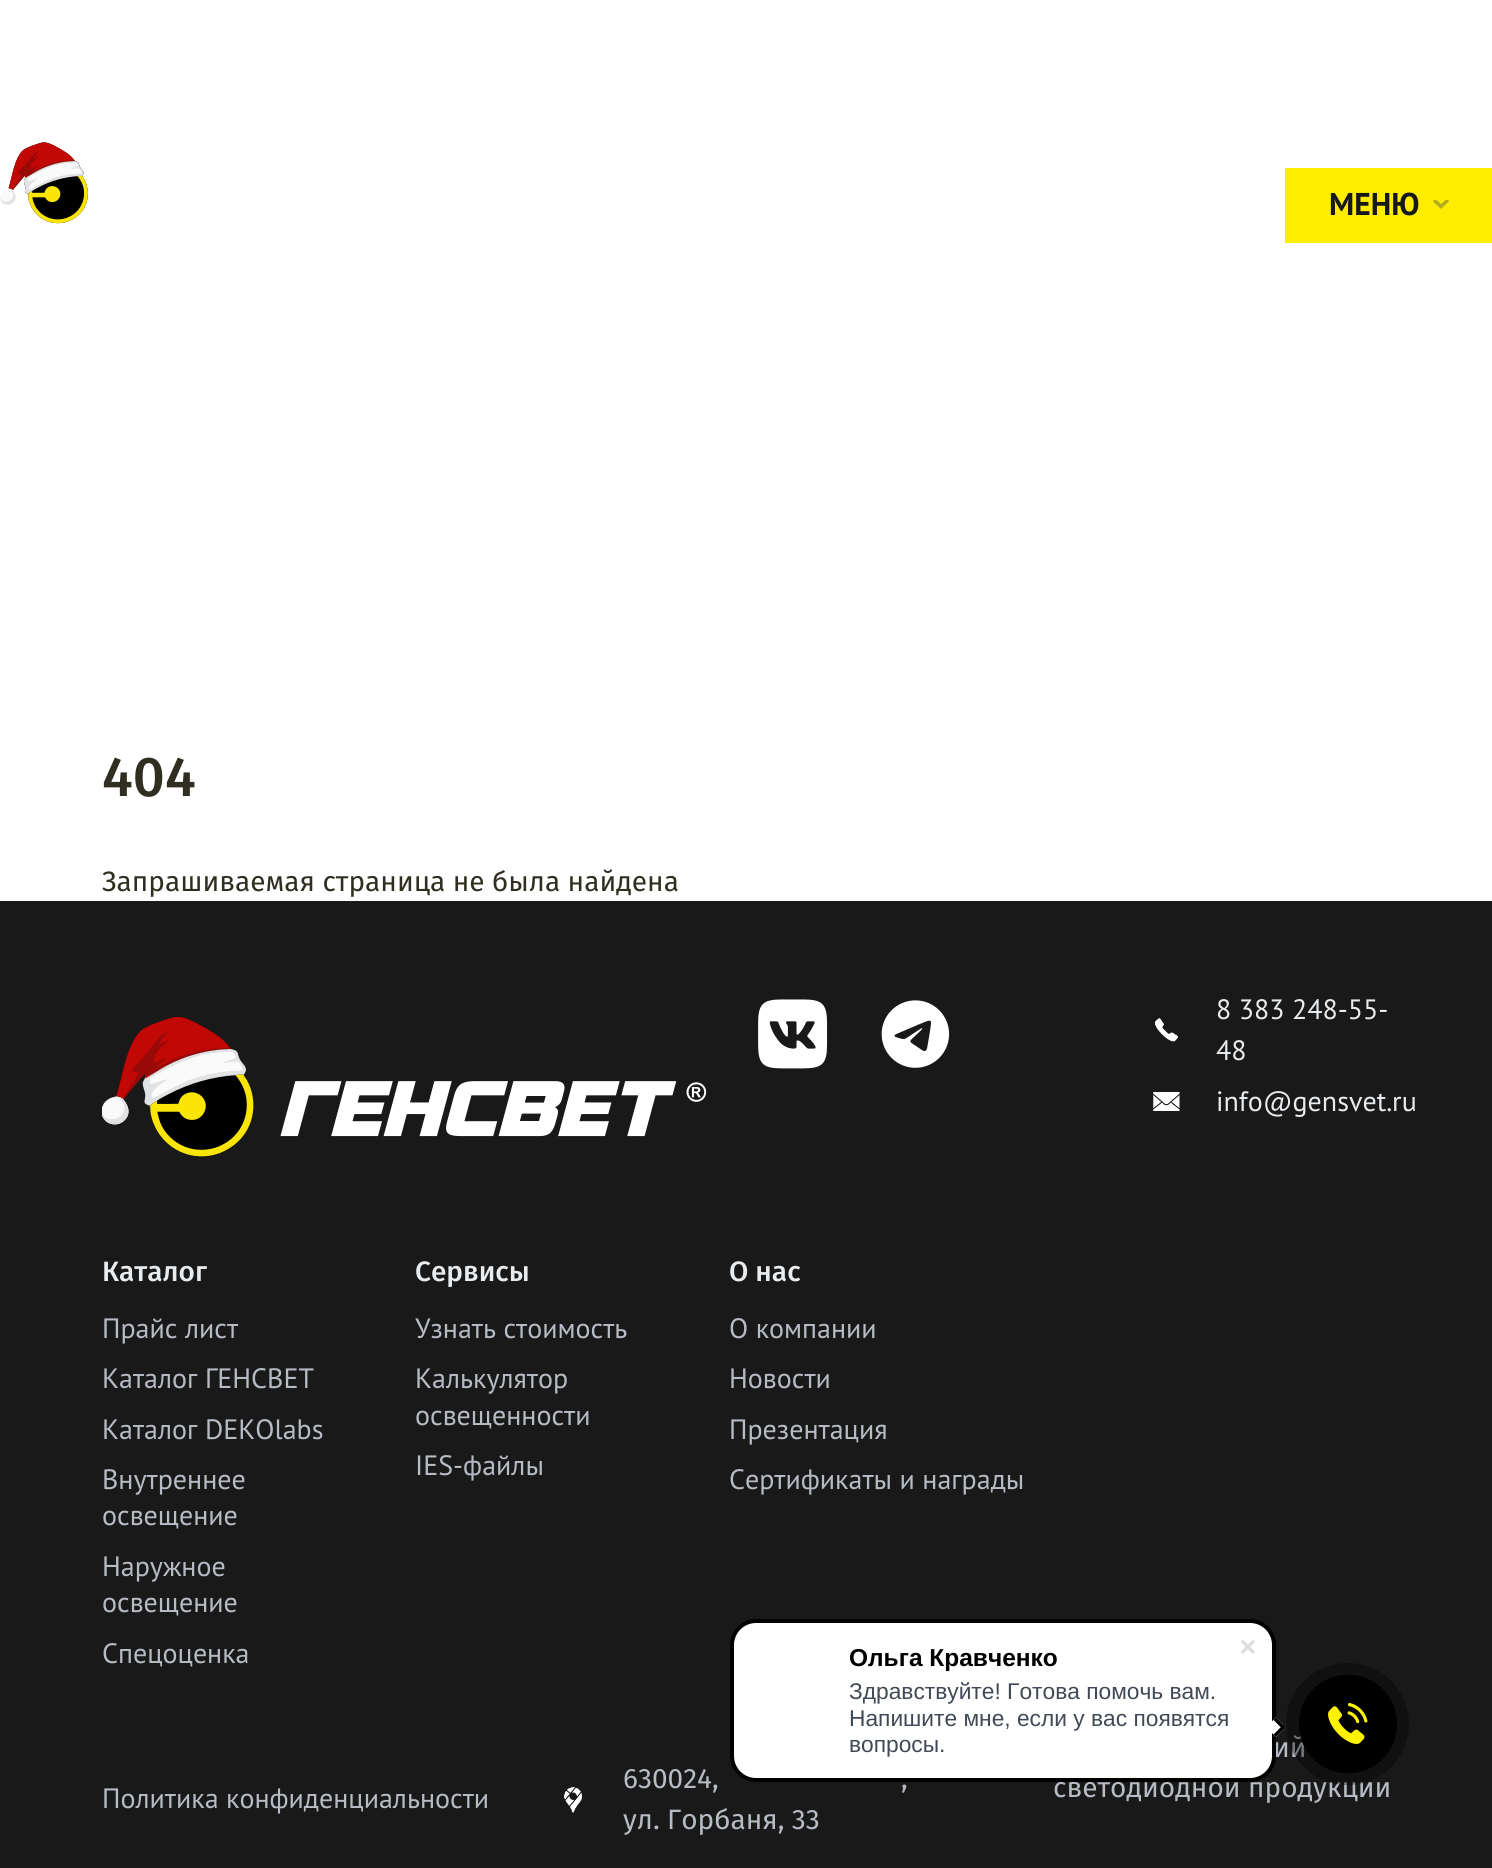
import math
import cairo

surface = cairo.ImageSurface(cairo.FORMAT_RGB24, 1492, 1868)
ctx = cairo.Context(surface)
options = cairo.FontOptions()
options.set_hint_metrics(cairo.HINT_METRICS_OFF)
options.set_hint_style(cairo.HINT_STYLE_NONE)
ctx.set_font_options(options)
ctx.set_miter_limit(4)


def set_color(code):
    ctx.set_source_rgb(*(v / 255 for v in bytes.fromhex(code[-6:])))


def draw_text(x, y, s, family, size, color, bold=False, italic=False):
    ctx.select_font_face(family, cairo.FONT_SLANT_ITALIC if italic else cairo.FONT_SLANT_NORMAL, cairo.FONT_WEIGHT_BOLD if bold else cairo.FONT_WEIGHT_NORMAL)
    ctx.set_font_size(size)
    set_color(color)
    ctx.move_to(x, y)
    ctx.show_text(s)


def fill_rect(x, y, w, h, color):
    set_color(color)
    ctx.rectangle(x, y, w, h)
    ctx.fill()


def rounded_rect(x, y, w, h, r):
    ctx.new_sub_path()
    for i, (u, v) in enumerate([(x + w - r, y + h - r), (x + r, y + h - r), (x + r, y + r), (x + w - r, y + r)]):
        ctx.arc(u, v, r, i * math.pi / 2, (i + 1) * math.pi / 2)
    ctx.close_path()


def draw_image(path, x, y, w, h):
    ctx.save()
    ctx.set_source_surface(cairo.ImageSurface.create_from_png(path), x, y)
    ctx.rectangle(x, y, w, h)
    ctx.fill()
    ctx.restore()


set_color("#ffffff")
ctx.paint()
draw_image("assets/img1.png", 0, 142, 88, 82)
fill_rect(1285, 168, 207, 75, "#ffed00")
draw_text(1329, 215, "МЕНЮ", "PT Sans", 31.5, "#17181a", bold=True)
ctx.save()
ctx.rectangle(1433, 200, 16, 10)
ctx.clip()
ctx.new_path()
ctx.move_to(1435, 201)
ctx.line_to(1441, 206.5)
ctx.line_to(1447, 201)
set_color("#b4ac22")
ctx.set_line_width(3.5)
ctx.set_line_cap(cairo.LINE_CAP_ROUND)
ctx.stroke()
ctx.restore()
draw_text(102, 796, "404", "Fira Sans Medium", 56, "#2f2e20")
draw_text(102, 891, "Запрашиваемая страница не была найдена", "Fira Sans", 28, "#2f2e20")
fill_rect(0, 901, 1492, 967, "#191919")
draw_image("assets/img2.png", 102, 1017, 605, 140)
draw_image("assets/img3.png", 758, 999, 70, 70)
draw_image("assets/img4.png", 881, 1000, 69, 68)
draw_text(1216, 1019, "8 383 248-55-", "PT Sans", 28, "#e9ecef")
draw_image("assets/img5.png", 1155, 1018, 23, 24)
draw_text(1216, 1060, "48", "PT Sans", 28, "#e9ecef")
draw_image("assets/img6.png", 1153, 1092, 27, 19)
draw_text(1216, 1111, "info@gensvet.ru", "PT Sans", 28, "#e9ecef")
draw_text(102, 1281, "Каталог", "Fira Sans Medium", 28, "#e9ecef")
draw_text(102, 1338, "Прайс лист", "PT Sans", 28, "#b7bcc4")
draw_text(102, 1388, "Каталог ГЕНСВЕТ", "PT Sans", 28, "#b7bcc4")
draw_text(102, 1439, "Каталог DEKOlabs", "PT Sans", 28, "#b7bcc4")
draw_text(102, 1489, "Внутреннее", "PT Sans", 28, "#b7bcc4")
draw_text(102, 1525, "освещение", "PT Sans", 28, "#b7bcc4")
draw_text(102, 1576, "Наружное", "PT Sans", 28, "#b7bcc4")
draw_text(102, 1612, "освещение", "PT Sans", 28, "#b7bcc4")
draw_text(102, 1663, "Спецоценка", "PT Sans", 28, "#b7bcc4")
draw_text(415, 1281, "Сервисы", "Fira Sans Medium", 28, "#e9ecef")
draw_text(415, 1338, "Узнать стоимость", "PT Sans", 28, "#b7bcc4")
draw_text(415, 1388, "Калькулятор", "PT Sans", 28, "#b7bcc4")
draw_text(415, 1425, "освещенности", "PT Sans", 28, "#b7bcc4")
draw_text(415, 1475, "IES-файлы", "PT Sans", 28, "#b7bcc4")
draw_text(729, 1281, "О нас", "Fira Sans Medium", 28, "#e9ecef")
draw_text(729, 1338, "О компании", "PT Sans", 28, "#b7bcc4")
draw_text(729, 1388, "Новости", "PT Sans", 28, "#b7bcc4")
draw_text(729, 1439, "Презентация", "PT Sans", 28, "#b7bcc4")
draw_text(729, 1489, "Сертификаты и награды", "PT Sans", 28, "#b7bcc4")
draw_text(102, 1808, "Политика конфиденциальности", "PT Sans", 28, "#b7bcc4")
draw_image("assets/img7.png", 564, 1787, 18, 26)
draw_text(623, 1788, "630024,", "Fira Sans", 28, "#b7bcc4")
draw_text(901, 1788, ",", "Fira Sans", 28, "#b7bcc4")
draw_text(623, 1829, "ул. Горбаня, 33", "Fira Sans", 28, "#b7bcc4")
draw_text(1273, 1757, "ий", "Fira Sans", 28, "#b7bcc4")
draw_text(1053, 1797, "светодиодной продукции", "Fira Sans", 28, "#b7bcc4")
set_color("#ffffff")
rounded_rect(732, 1621, 542, 159, 24)
ctx.fill_preserve()
set_color("#000000")
ctx.set_line_width(4)
ctx.stroke()
draw_image("assets/img8.png", 1240, 1639, 15, 15)
draw_text(849, 1666, "Ольга Кравченко", "Liberation Sans", 24.5, "#000000", bold=True)
draw_text(849, 1699, "Здравствуйте! Готова помочь вам.", "Liberation Sans", 22.75, "#424956")
draw_text(849, 1726, "Напишите мне, если у вас появятся", "Liberation Sans", 22.75, "#424956")
draw_text(849, 1752, "вопросы.", "Liberation Sans", 22.75, "#424956")
set_color("#ffffff")
ctx.new_path()
ctx.move_to(1266, 1727)
ctx.line_to(1276, 1717.5)
ctx.line_to(1285.5, 1727)
ctx.line_to(1276, 1737)
ctx.close_path()
ctx.fill()
set_color("#000000")
ctx.new_path()
ctx.move_to(1273.5, 1720)
ctx.line_to(1276, 1717.5)
ctx.line_to(1285.5, 1727)
ctx.line_to(1283, 1729.5)
ctx.close_path()
ctx.fill()
ctx.new_path()
ctx.move_to(1273.5, 1734.5)
ctx.line_to(1283, 1725)
ctx.line_to(1285.5, 1727)
ctx.line_to(1276, 1737)
ctx.close_path()
ctx.fill()
ctx.set_source_rgba(0, 0, 0, 0.2)
rounded_rect(1286, 1663, 123, 122, 61)
ctx.fill()
ctx.arc(1348, 1724, 48.5, 0, 2 * math.pi)
set_color("#000000")
ctx.set_line_width(1)
ctx.stroke()
ctx.set_source_rgba(0, 0, 0, 0.2)
rounded_rect(1286, 1663, 123, 122, 61)
ctx.fill()
ctx.arc(1348, 1724, 48.5, 0, 2 * math.pi)
set_color("#000000")
ctx.stroke()
ctx.arc(1348, 1724, 49, 0, 2 * math.pi)
ctx.fill()
draw_image("assets/img9.png", 1328, 1703, 40, 41)
surface.write_to_png("output.png")
